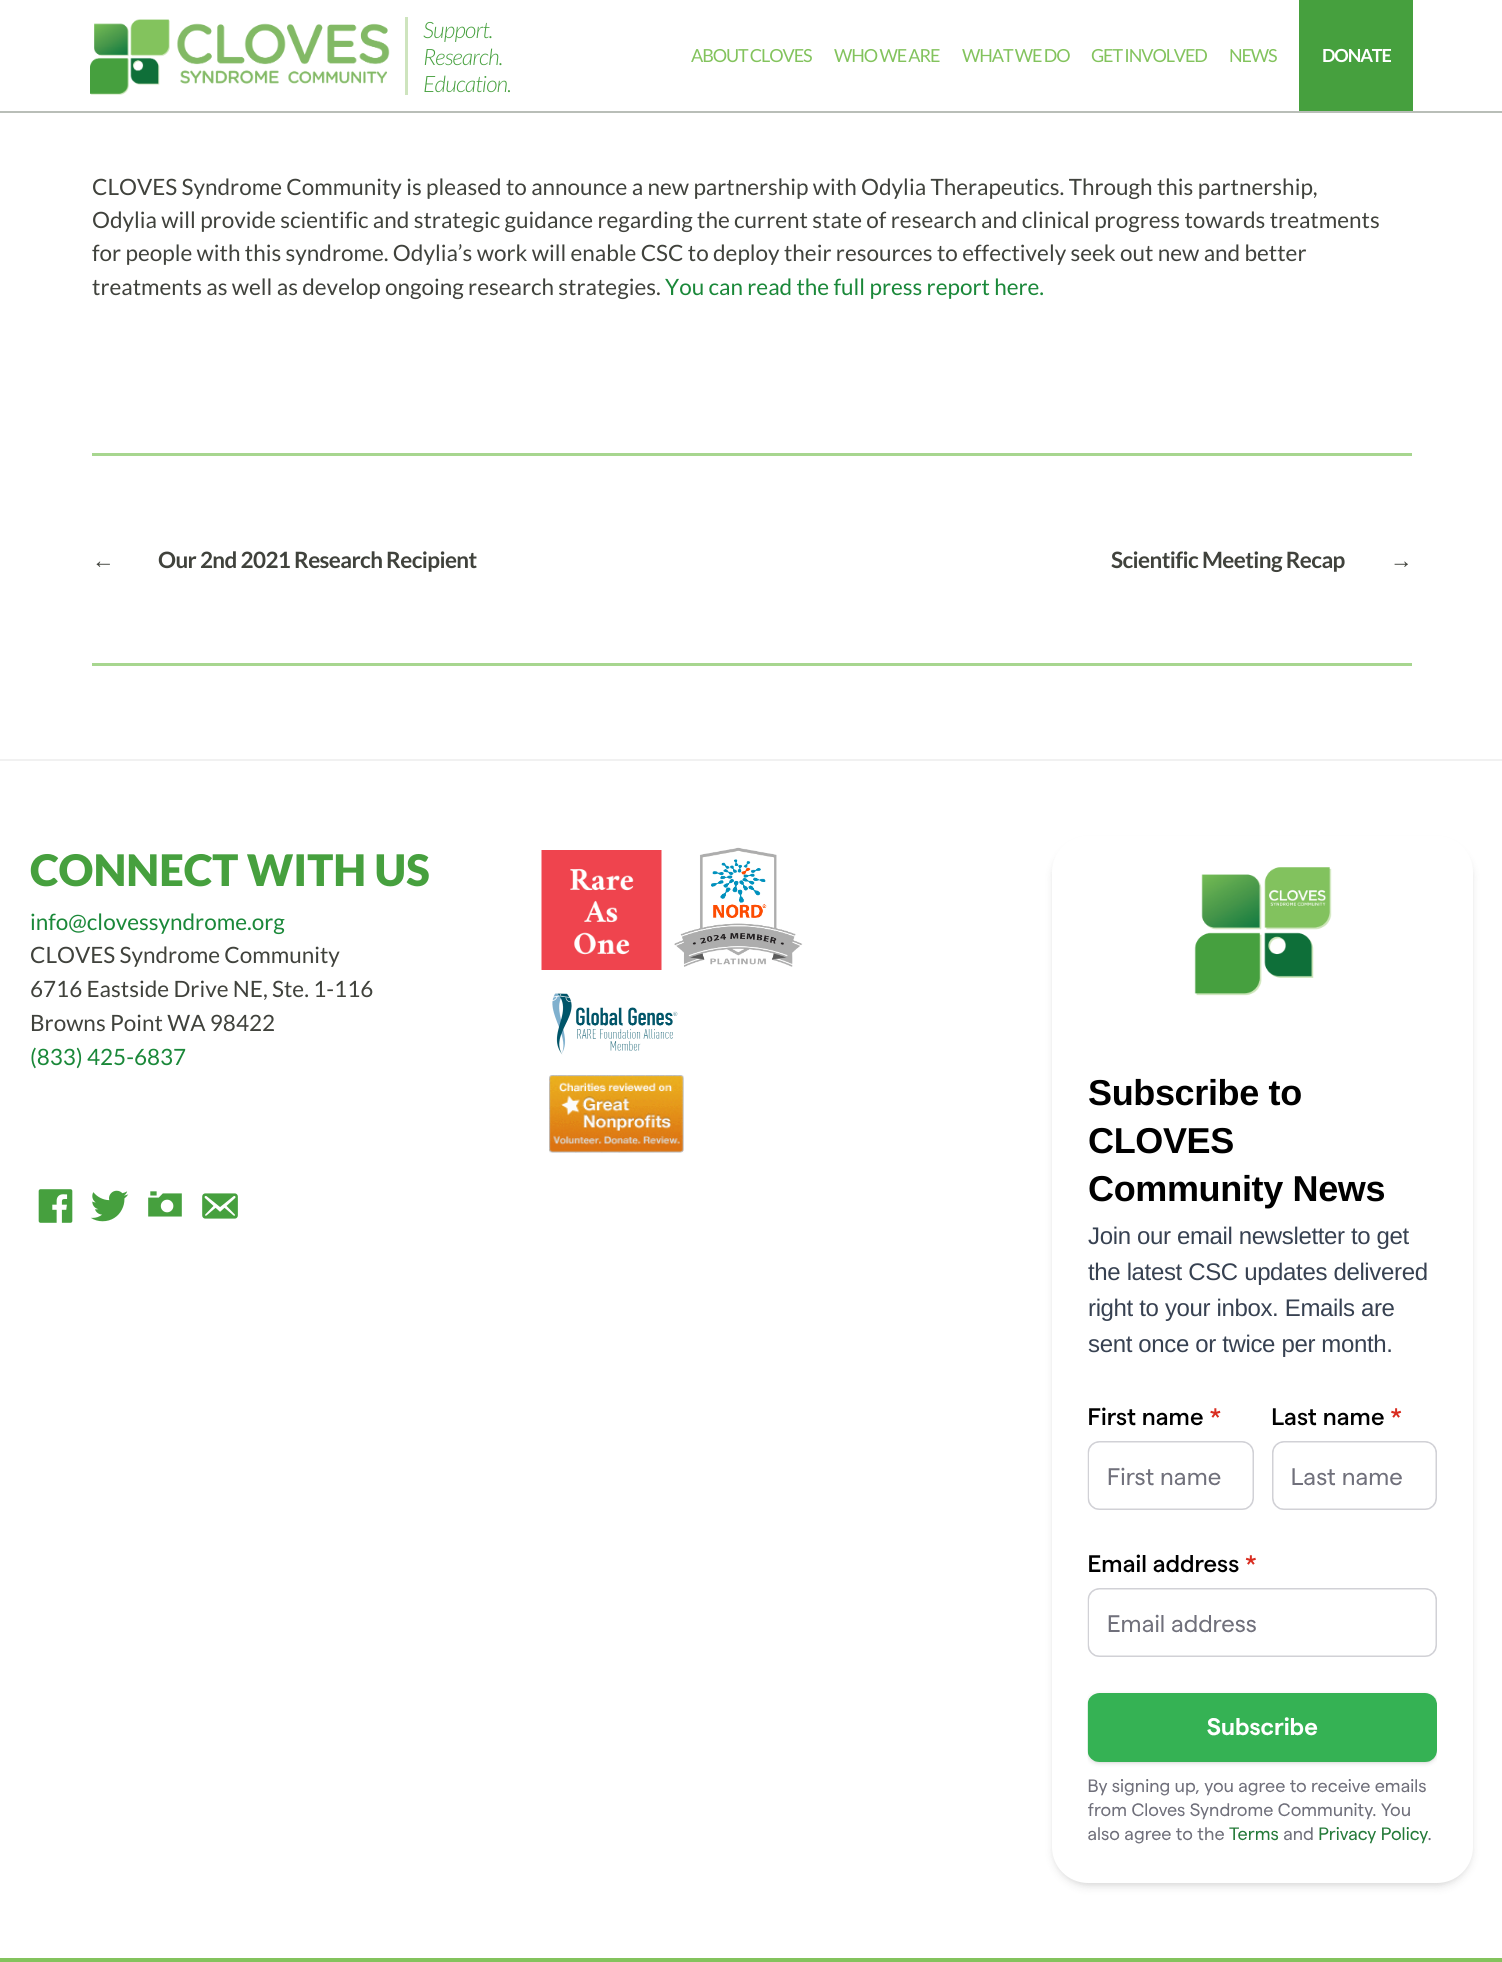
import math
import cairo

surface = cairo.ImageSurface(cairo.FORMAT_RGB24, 1502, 1962)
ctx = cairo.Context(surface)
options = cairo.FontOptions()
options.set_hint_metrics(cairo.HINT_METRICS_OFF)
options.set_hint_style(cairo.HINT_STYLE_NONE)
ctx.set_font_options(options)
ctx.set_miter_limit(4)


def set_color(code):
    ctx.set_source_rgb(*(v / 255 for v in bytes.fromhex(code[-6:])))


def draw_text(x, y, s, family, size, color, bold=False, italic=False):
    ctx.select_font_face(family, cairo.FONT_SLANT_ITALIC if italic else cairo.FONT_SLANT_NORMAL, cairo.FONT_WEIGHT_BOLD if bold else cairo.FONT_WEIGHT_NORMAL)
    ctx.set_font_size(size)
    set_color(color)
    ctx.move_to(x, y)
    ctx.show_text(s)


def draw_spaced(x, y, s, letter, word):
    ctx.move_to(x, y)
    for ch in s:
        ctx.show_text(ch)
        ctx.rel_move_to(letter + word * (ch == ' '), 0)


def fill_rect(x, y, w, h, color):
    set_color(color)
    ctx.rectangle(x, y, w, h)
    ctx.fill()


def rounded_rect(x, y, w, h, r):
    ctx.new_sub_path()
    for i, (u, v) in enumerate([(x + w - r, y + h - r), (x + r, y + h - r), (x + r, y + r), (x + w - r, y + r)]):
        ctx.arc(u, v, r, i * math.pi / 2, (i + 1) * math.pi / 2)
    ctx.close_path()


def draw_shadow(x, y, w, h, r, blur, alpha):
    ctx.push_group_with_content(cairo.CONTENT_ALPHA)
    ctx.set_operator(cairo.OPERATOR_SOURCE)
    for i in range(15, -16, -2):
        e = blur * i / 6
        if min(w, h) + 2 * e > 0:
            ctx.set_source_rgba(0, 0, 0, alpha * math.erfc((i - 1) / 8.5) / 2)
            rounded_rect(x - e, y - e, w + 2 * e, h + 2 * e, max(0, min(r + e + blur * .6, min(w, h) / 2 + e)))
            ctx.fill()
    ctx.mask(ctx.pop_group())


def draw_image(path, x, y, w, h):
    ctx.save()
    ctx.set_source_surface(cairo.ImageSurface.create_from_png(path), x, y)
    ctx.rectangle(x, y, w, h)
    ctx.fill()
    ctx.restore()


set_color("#ffffff")
ctx.paint()
fill_rect(0, 111, 1502, 2, "#b9beb8")
fill_rect(405, 17, 3, 78, "#cee4be")
draw_image("assets/img1.png", 90, 19, 300, 76)
ctx.select_font_face("Lato Light", cairo.FONT_SLANT_ITALIC)
ctx.set_font_size(22.5)
set_color("#46a03e")
draw_spaced(423, 38, "Support.", -0.75, 0)
draw_spaced(423, 65, "Research.", -0.75, 0)
draw_spaced(423, 92, "Education.", -0.75, 0)
ctx.select_font_face("Lato")
ctx.set_font_size(18)
set_color("#83c35d")
draw_spaced(691, 62, "ABOUT CLOVES", -1.1, 0)
draw_spaced(834, 62, "WHO WE ARE", -1.1, 0)
draw_spaced(962, 62, "WHAT WE DO", -1.1, 0)
draw_spaced(1091, 62, "GET INVOLVED", -1.1, 0)
draw_spaced(1229, 62, "NEWS", -1.1, 0)
fill_rect(1299, 0, 114, 111, "#46a03e")
ctx.select_font_face("Lato", cairo.FONT_SLANT_NORMAL, cairo.FONT_WEIGHT_BOLD)
set_color("#ffffff")
draw_spaced(1322, 62, "DONATE", -1.1, 0)
draw_text(92, 195, "CLOVES Syndrome Community is pleased to announce a new partnership with Odylia Therapeutics. Through this partnership,", "Lato", 22.5, "#40423c")
draw_text(92, 228, "Odylia will provide scientific and strategic guidance regarding the current state of research and clinical progress towards treatments", "Lato", 22.5, "#40423c")
draw_text(92, 261, "for people with this syndrome. Odylia’s work will enable CSC to deploy their resources to effectively seek out new and better", "Lato", 22.5, "#40423c")
draw_text(92, 295, "treatments as well as develop ongoing research strategies.", "Lato", 22.5, "#40423c")
draw_text(665, 295, "You can read the full press report here.", "Lato", 22.5, "#1a8839")
fill_rect(92, 453, 1320, 3, "#a7d68f")
ctx.select_font_face("Liberation Sans", cairo.FONT_SLANT_NORMAL, cairo.FONT_WEIGHT_BOLD)
set_color("#40423c")
draw_spaced(92, 568, "←", -0.6, 0)
ctx.select_font_face("Lato", cairo.FONT_SLANT_NORMAL, cairo.FONT_WEIGHT_BOLD)
draw_spaced(158, 568, "Our 2nd 2021 Research Recipient", -0.6, 0)
draw_spaced(1111, 568, "Scientific Meeting Recap", -0.6, 0)
ctx.select_font_face("Liberation Sans", cairo.FONT_SLANT_NORMAL, cairo.FONT_WEIGHT_BOLD)
draw_spaced(1390, 568, "→", -0.6, 0)
fill_rect(92, 663, 1320, 3, "#a7d68f")
fill_rect(0, 759, 1502, 2, "#f1f1f1")
draw_text(30, 886, "CONNECT WITH US", "Lato Black", 43.5, "#46a03e")
draw_text(30, 930, "info@clovessyndrome.org", "Lato", 22.5, "#1a8839")
draw_text(30, 963, "CLOVES Syndrome Community", "Lato", 22.5, "#40423c")
draw_text(30, 997, "6716 Eastside Drive NE, Ste. 1-116", "Lato", 22.5, "#40423c")
draw_text(30, 1031, "Browns Point WA 98422", "Lato", 22.5, "#40423c")
draw_text(30, 1065, "(833) 425-6837", "Lato", 22.5, "#1a8839")
draw_image("assets/img2.png", 38, 1189, 35, 34)
draw_image("assets/img3.png", 90, 1190, 39, 32)
draw_image("assets/img4.png", 148, 1191, 34, 26)
draw_image("assets/img5.png", 202, 1193, 36, 26)
draw_image("assets/img6.png", 541, 850, 121, 120)
draw_image("assets/img7.png", 674, 847, 129, 120)
draw_image("assets/img8.png", 552, 993, 126, 62)
draw_image("assets/img9.png", 549, 1075, 135, 78)
set_color("#000000")
draw_shadow(1055, 842, 415, 1041, 33, 3, 0.1)
draw_shadow(1053, 843, 419, 1044, 35, 4.5, 0.1)
set_color("#ffffff")
rounded_rect(1052, 836, 421, 1047, 36)
ctx.fill()
draw_image("assets/img10.png", 1194, 867, 138, 129)
ctx.select_font_face("Liberation Sans", cairo.FONT_SLANT_NORMAL, cairo.FONT_WEIGHT_BOLD)
ctx.set_font_size(36)
set_color("#000000")
draw_spaced(1088, 1105, "Subscribe to", -0.35, 0)
draw_spaced(1088, 1153, "CLOVES", -0.35, 0)
draw_spaced(1088, 1201, "Community News", -0.35, 0)
ctx.select_font_face("Liberation Sans")
ctx.set_font_size(24)
set_color("#374151")
draw_spaced(1088, 1244, "Join our email newsletter to get", -0.35, 0)
draw_spaced(1088, 1280, "the latest CSC updates delivered", -0.35, 0)
draw_spaced(1088, 1316, "right to your inbox. Emails are", -0.35, 0)
draw_spaced(1088, 1352, "sent once or twice per month.", -0.35, 0)
draw_image("assets/img11.png", 1087, 1407, 350, 437)
fill_rect(0, 1958, 1502, 4, "#83c35d")
surface.write_to_png("output.png")
